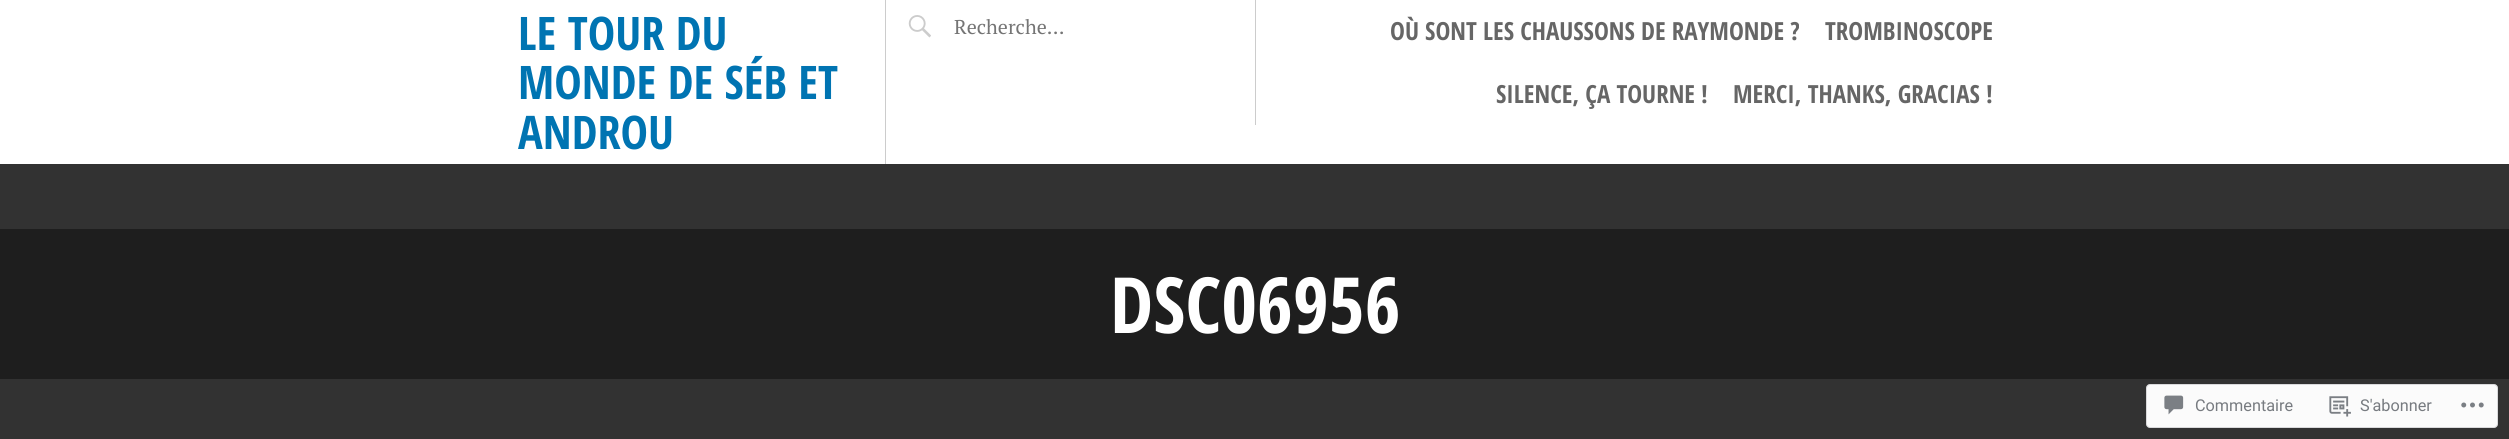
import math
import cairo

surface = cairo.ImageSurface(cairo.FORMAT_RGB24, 2509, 439)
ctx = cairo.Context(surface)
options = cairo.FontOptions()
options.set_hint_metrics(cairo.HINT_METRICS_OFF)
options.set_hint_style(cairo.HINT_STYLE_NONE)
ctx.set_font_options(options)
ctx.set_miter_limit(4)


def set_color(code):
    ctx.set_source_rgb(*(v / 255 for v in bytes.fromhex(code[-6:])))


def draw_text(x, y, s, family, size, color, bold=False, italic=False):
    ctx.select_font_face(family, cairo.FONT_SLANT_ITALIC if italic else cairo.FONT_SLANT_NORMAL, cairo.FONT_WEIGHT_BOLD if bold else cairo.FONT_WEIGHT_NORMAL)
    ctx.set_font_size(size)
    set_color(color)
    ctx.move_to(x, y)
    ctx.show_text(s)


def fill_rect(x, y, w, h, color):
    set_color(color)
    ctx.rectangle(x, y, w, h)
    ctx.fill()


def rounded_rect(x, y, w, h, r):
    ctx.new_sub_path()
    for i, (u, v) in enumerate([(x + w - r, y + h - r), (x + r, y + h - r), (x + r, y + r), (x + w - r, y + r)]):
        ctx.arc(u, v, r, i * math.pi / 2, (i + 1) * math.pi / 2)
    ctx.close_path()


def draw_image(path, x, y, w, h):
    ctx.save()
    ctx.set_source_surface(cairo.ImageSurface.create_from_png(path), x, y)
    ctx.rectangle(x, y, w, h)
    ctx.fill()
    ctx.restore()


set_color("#ffffff")
ctx.paint()
fill_rect(885, 0, 1, 164, "#cccccc")
draw_text(518, 50, "LE TOUR DU", "Open Sans Condensed", 46.25, "#0074b2", bold=True)
draw_text(518, 99, "MONDE DE SÉB ET", "Open Sans Condensed", 46.25, "#0074b2", bold=True)
draw_text(518, 149, "ANDROU", "Open Sans Condensed", 46.25, "#0074b2", bold=True)
draw_image("assets/img1.png", 908, 15, 23, 23)
draw_text(954, 34, "Recherche…", "PT Serif", 20, "#757575")
fill_rect(1255, 0, 1, 125, "#cccccc")
draw_text(1390, 40, "OÙ SONT LES CHAUSSONS DE RAYMONDE ?", "Open Sans Condensed", 25, "#666666", bold=True)
draw_text(1825, 40, "TROMBINOSCOPE", "Open Sans Condensed", 25, "#666666", bold=True)
draw_text(1496, 103, "SILENCE, ÇA TOURNE !", "Open Sans Condensed", 25, "#666666", bold=True)
draw_text(1733, 103, "MERCI, THANKS, GRACIAS !", "Open Sans Condensed", 25, "#666666", bold=True)
fill_rect(0, 229, 2509, 150, "#1e1e1e")
fill_rect(0, 164, 2509, 65, "#323232")
fill_rect(0, 379, 2509, 60, "#323232")
draw_text(1110, 333, "DSC06956", "Open Sans Condensed", 77.5, "#ffffff", bold=True)
set_color("#fbfbfb")
rounded_rect(2146.5, 384.5, 351, 43, 3.5)
ctx.fill_preserve()
set_color("#d9d9db")
ctx.set_line_width(1)
ctx.stroke()
draw_image("assets/img2.png", 2164, 395, 20, 20)
draw_text(2195, 411, "Commentaire", "Roboto", 16.25, "#777b80")
draw_image("assets/img3.png", 2329, 396, 22, 21)
draw_text(2360, 411, "S'abonner", "Roboto", 16.25, "#777b80")
draw_image("assets/img4.png", 2461, 402, 23, 6)
surface.write_to_png("output.png")
